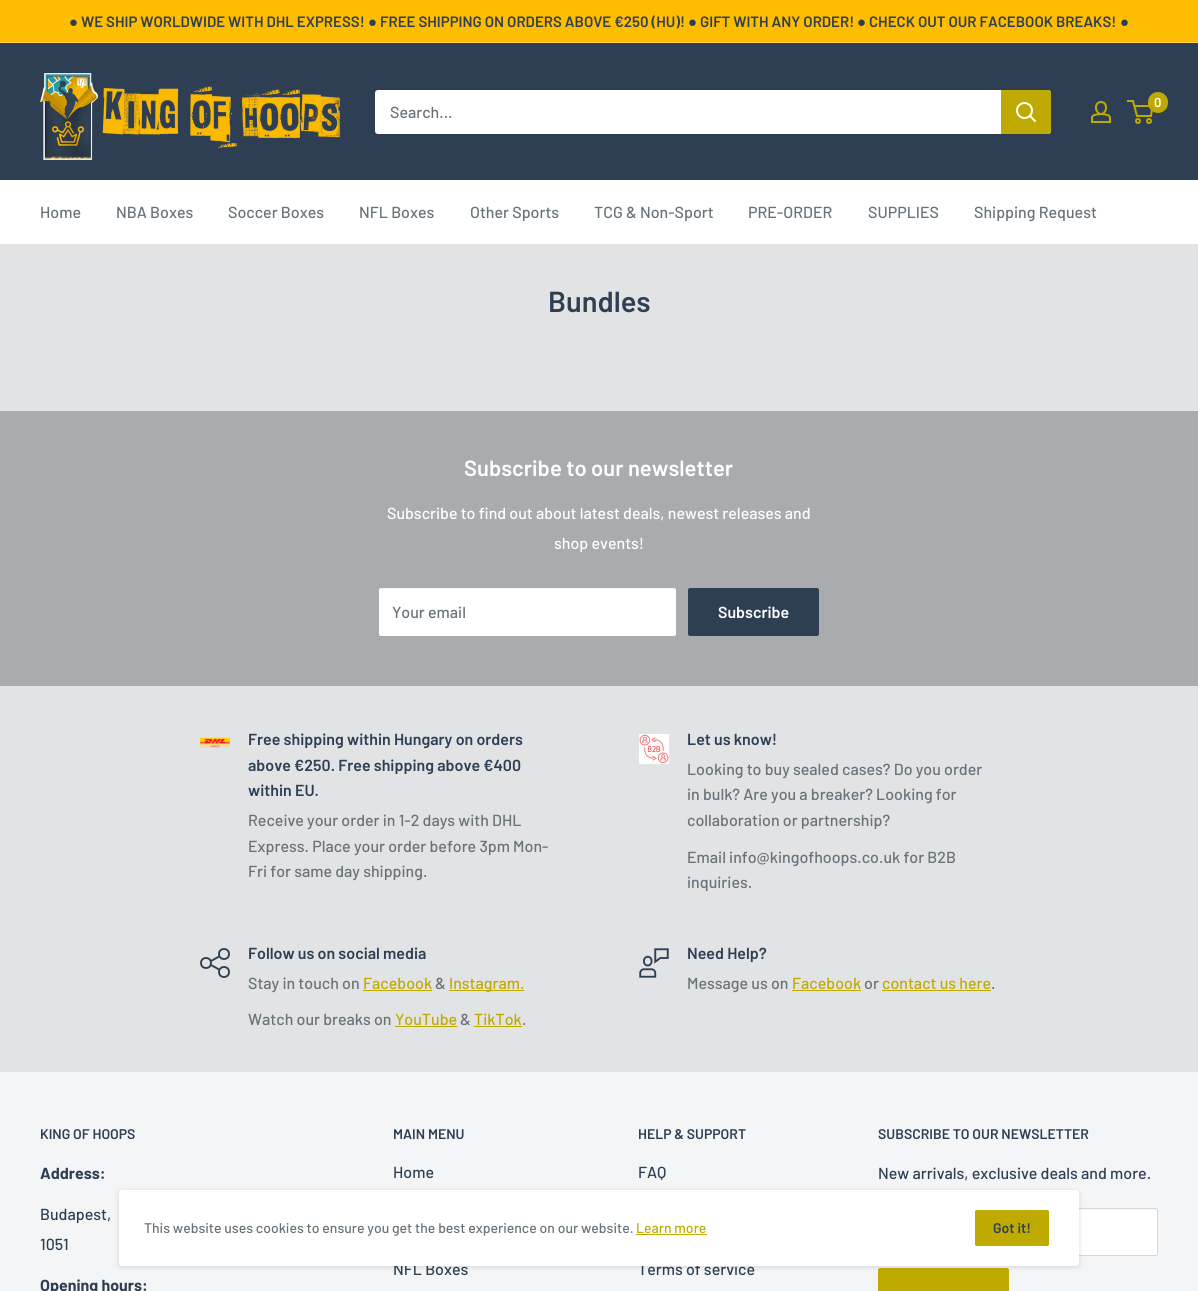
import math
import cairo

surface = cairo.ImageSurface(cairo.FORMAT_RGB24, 1198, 1291)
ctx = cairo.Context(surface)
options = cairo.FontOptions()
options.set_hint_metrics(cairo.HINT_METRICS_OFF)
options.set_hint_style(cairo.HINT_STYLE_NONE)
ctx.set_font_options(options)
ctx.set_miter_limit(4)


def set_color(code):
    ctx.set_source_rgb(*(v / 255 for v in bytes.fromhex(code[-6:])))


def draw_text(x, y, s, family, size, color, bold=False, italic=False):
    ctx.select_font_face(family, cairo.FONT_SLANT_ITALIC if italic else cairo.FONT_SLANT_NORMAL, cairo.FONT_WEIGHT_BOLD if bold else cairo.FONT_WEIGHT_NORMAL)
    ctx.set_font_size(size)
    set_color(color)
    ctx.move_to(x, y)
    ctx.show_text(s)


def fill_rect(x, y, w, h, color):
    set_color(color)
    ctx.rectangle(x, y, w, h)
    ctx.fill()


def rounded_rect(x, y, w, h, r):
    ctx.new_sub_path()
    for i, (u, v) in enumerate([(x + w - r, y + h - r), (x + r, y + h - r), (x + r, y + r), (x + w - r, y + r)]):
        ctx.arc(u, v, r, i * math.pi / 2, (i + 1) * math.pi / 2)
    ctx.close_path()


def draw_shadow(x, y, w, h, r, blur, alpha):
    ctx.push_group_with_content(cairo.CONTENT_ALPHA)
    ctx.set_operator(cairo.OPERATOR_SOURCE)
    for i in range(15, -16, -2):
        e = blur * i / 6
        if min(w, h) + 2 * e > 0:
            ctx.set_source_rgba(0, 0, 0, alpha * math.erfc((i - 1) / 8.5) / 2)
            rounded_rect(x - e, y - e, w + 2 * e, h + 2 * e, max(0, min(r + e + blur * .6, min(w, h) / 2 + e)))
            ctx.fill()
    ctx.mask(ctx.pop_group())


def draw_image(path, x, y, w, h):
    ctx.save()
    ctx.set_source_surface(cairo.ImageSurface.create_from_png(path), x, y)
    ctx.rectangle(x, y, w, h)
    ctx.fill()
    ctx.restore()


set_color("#e1e3e4")
ctx.paint()
fill_rect(0, 0, 1198, 42, "#ffbd00")
fill_rect(0, 42, 1198, 1, "#fbce4a")
draw_text(69, 27, "●", "Liberation Sans", 15, "#2f3f53", bold=True)
draw_text(81, 27, "WE SHIP WORLDWIDE WITH DHL EXPRESS!", "Barlow SemiBold", 15, "#2f3f53")
draw_text(368, 27, "●", "Liberation Sans", 15, "#2f3f53", bold=True)
draw_text(380, 27, "FREE SHIPPING ON ORDERS ABOVE €250 (HU)!", "Barlow SemiBold", 15, "#2f3f53")
draw_text(688, 27, "●", "Liberation Sans", 15, "#2f3f53", bold=True)
draw_text(700, 27, "GIFT WITH ANY ORDER!", "Barlow SemiBold", 15, "#2f3f53")
draw_text(857, 27, "●", "Liberation Sans", 15, "#2f3f53", bold=True)
draw_text(869, 27, "CHECK OUT OUR FACEBOOK BREAKS!", "Barlow SemiBold", 15, "#2f3f53")
draw_text(1120, 27, "●", "Liberation Sans", 15, "#2f3f53", bold=True)
fill_rect(0, 43, 1198, 137, "#2f3f53")
draw_image("assets/img1.png", 40, 73, 300, 87)
draw_image("assets/img2.png", 1091, 101, 20, 22)
ctx.arc(1138, 121, 2, 0, 2 * math.pi)
set_color("#beaa00")
ctx.stroke()
ctx.arc(1149, 121, 2, 0, 2 * math.pi)
ctx.stroke()
ctx.new_path()
ctx.move_to(1134.5, 106)
ctx.line_to(1152.5, 106)
ctx.line_to(1151, 116)
ctx.line_to(1137, 116)
ctx.line_to(1133, 101)
ctx.line_to(1127, 101)
ctx.stroke()
rounded_rect(1148, 92, 20, 21, 10)
ctx.fill()
draw_text(1154, 107, "0", "Barlow SemiBold", 13, "#ffffff")
rounded_rect(375, 90, 676, 44, 3)
ctx.fill()
draw_text(390, 118, "Search...", "Barlow Medium", 16, "#677279")
set_color("#beaa00")
ctx.new_path()
ctx.move_to(1001, 90)
ctx.line_to(1048, 90)
ctx.curve_to(1049.5, 90, 1051, 91.5, 1051, 93)
ctx.line_to(1051, 131)
ctx.curve_to(1051, 132.5, 1049.5, 134, 1048, 134)
ctx.line_to(1001, 134)
ctx.close_path()
ctx.fill()
ctx.new_path()
ctx.move_to(1035, 121)
ctx.line_to(1030, 116)
set_color("#ffffff")
ctx.set_line_cap(cairo.LINE_CAP_SQUARE)
ctx.stroke()
ctx.arc(1024.5, 110.5, 7.5, 0, 2 * math.pi)
ctx.set_line_cap(cairo.LINE_CAP_BUTT)
ctx.stroke()
fill_rect(0, 180, 1198, 64, "#ffffff")
draw_text(40, 218, "Home", "Barlow Medium", 16, "#677279")
draw_text(116, 218, "NBA Boxes", "Barlow Medium", 16, "#677279")
draw_text(228, 218, "Soccer Boxes", "Barlow Medium", 16, "#677279")
draw_text(359, 218, "NFL Boxes", "Barlow Medium", 16, "#677279")
draw_text(470, 218, "Other Sports", "Barlow Medium", 16, "#677279")
draw_text(594, 218, "TCG & Non-Sport", "Barlow Medium", 16, "#677279")
draw_text(748, 218, "PRE-ORDER", "Barlow Medium", 16, "#677279")
draw_text(868, 218, "SUPPLIES", "Barlow Medium", 16, "#677279")
draw_text(974, 218, "Shipping Request", "Barlow Medium", 16, "#677279")
draw_text(548, 312, "Bundles", "Barlow SemiBold", 29, "#2f3f53")
fill_rect(0, 411, 1198, 275, "#a8acae")
draw_text(464, 476, "Subscribe to our newsletter", "Barlow SemiBold", 22, "#ffffff")
draw_text(387, 519, "Subscribe to find out about latest deals, newest releases and", "Barlow Medium", 16, "#ffffff")
draw_text(554, 549, "shop events!", "Barlow Medium", 16, "#ffffff")
rounded_rect(379, 588, 297, 48, 2)
ctx.fill()
ctx.set_source_rgba(0.882, 0.89, 0.894, 0.25)
ctx.new_path()
ctx.move_to(381, 589)
ctx.line_to(674, 589)
ctx.curve_to(675, 589, 676, 590, 676, 591)
ctx.curve_to(676, 590, 676, 588, 674, 588)
ctx.line_to(380, 588)
ctx.line_to(379, 591)
ctx.curve_to(379, 590, 380, 589, 381, 589)
ctx.close_path()
ctx.fill()
draw_text(392, 618, "Your email", "Barlow Medium", 16, "#677279")
set_color("#2f3f53")
rounded_rect(688, 588, 131, 48, 2)
ctx.fill()
draw_text(718, 618, "Subscribe", "Barlow SemiBold", 16, "#ffffff")
draw_image("assets/img3.png", 200, 737, 30, 11)
draw_text(248, 745, "Free shipping within Hungary on orders", "Barlow SemiBold", 16, "#2f3f53")
draw_text(248, 771, "above €250. Free shipping above €400", "Barlow SemiBold", 16, "#2f3f53")
draw_text(248, 796, "within EU.", "Barlow SemiBold", 16, "#2f3f53")
draw_text(248, 826, "Receive your order in 1-2 days with DHL", "Barlow Medium", 16, "#677279")
draw_text(248, 852, "Express. Place your order before 3pm Mon-", "Barlow Medium", 16, "#677279")
draw_text(248, 877, "Fri for same day shipping.", "Barlow Medium", 16, "#677279")
draw_image("assets/img4.png", 639, 734, 30, 30)
draw_text(687, 745, "Let us know!", "Barlow SemiBold", 16, "#2f3f53")
draw_text(687, 775, "Looking to buy sealed cases? Do you order", "Barlow Medium", 16, "#677279")
draw_text(687, 800, "in bulk? Are you a breaker? Looking for", "Barlow Medium", 16, "#677279")
draw_text(687, 826, "collaboration or partnership?", "Barlow Medium", 16, "#677279")
draw_text(687, 863, "Email info@kingofhoops.co.uk for B2B", "Barlow Medium", 16, "#677279")
draw_text(687, 888, "inquiries.", "Barlow Medium", 16, "#677279")
ctx.new_path()
ctx.move_to(211, 961)
ctx.line_to(219, 956.5)
ctx.move_to(211, 965)
ctx.line_to(219, 969.5)
set_color("#2f3f53")
ctx.set_line_width(1.9)
ctx.stroke()
ctx.arc(206, 963, 5, 0, 2 * math.pi)
ctx.stroke()
ctx.arc(224, 954, 5, 0, 2 * math.pi)
ctx.stroke()
ctx.arc(224, 972, 5, 0, 2 * math.pi)
ctx.stroke()
draw_text(248, 959, "Follow us on social media", "Barlow SemiBold", 16, "#2f3f53")
draw_text(248, 989, "Stay in touch on", "Barlow Medium", 16, "#677279")
draw_text(363, 989, "Facebook", "Barlow Medium", 16, "#beaa00")
fill_rect(363, 990, 69, 1, "#beaa00")
draw_text(435, 989, "&", "Barlow Medium", 16, "#677279")
fill_rect(449, 990, 75, 1, "#beaa00")
draw_text(449, 989, "Instagram.", "Barlow Medium", 16, "#beaa00")
draw_text(248, 1025, "Watch our breaks on", "Barlow Medium", 16, "#677279")
draw_text(395, 1025, "YouTube", "Barlow Medium", 16, "#beaa00")
fill_rect(395, 1026, 62, 1, "#beaa00")
draw_text(460, 1025, "&", "Barlow Medium", 16, "#677279")
draw_text(474, 1025, "TikTok", "Barlow Medium", 16, "#beaa00")
fill_rect(474, 1026, 48, 1, "#beaa00")
draw_text(522, 1025, ".", "Barlow Medium", 16, "#677279")
draw_image("assets/img5.png", 639, 948, 30, 30)
draw_text(687, 959, "Need Help?", "Barlow SemiBold", 16, "#2f3f53")
draw_text(687, 989, "Message us on", "Barlow Medium", 16, "#677279")
draw_text(792, 989, "Facebook", "Barlow Medium", 16, "#beaa00")
fill_rect(792, 990, 69, 1, "#beaa00")
draw_text(864, 989, "or", "Barlow Medium", 16, "#677279")
draw_text(882, 989, "contact us here", "Barlow Medium", 16, "#beaa00")
fill_rect(882, 990, 109, 1, "#beaa00")
draw_text(991, 989, ".", "Barlow Medium", 16, "#677279")
fill_rect(0, 1072, 1198, 219, "#f3f5f6")
draw_text(40, 1139, "KING OF HOOPS", "Barlow SemiBold", 14, "#2f3f53")
draw_text(40, 1179, "Address:", "Barlow", 16, "#2f3f53", bold=True)
draw_text(40, 1220, "Budapest,", "Barlow Medium", 16, "#2f3f53")
draw_text(40, 1250, "1051", "Barlow Medium", 16, "#2f3f53")
draw_text(40, 1291, "Opening hours:", "Barlow", 16, "#2f3f53", bold=True)
draw_text(393, 1139, "MAIN MENU", "Barlow SemiBold", 14, "#2f3f53")
draw_text(393, 1178, "Home", "Barlow Medium", 16, "#2f3f53")
draw_text(393, 1275, "NFL Boxes", "Barlow Medium", 16, "#2f3f53")
draw_text(638, 1139, "HELP & SUPPORT", "Barlow SemiBold", 14, "#2f3f53")
draw_text(638, 1178, "FAQ", "Barlow Medium", 16, "#2f3f53")
draw_text(638, 1275, "Terms of service", "Barlow Medium", 16, "#2f3f53")
draw_text(878, 1139, "SUBSCRIBE TO OUR NEWSLETTER", "Barlow SemiBold", 14, "#2f3f53")
draw_text(878, 1179, "New arrivals, exclusive deals and more.", "Barlow Medium", 16, "#2f3f53")
set_color("#ffffff")
rounded_rect(878, 1208, 280, 48, 2)
ctx.fill()
set_color("#f8f8f8")
ctx.new_path()
ctx.move_to(880, 1210)
ctx.line_to(1156, 1210)
ctx.curve_to(1157, 1210, 1157, 1210, 1157, 1211)
ctx.curve_to(1157, 1210, 1157, 1209, 1156, 1209)
ctx.line_to(880, 1209)
ctx.line_to(879, 1209)
ctx.line_to(879, 1211)
ctx.curve_to(879, 1210, 879, 1210, 880, 1210)
ctx.close_path()
ctx.fill()
rounded_rect(878.5, 1208.5, 279, 47, 1.5)
set_color("#d4d6d8")
ctx.set_line_width(1)
ctx.stroke()
set_color("#beaa00")
rounded_rect(878, 1268, 131, 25, 2)
ctx.fill()
set_color("#000000")
draw_shadow(118, 1190, 962, 78, 4, 2, 0.1)
set_color("#ffffff")
rounded_rect(119, 1190, 960, 76, 3)
ctx.fill()
draw_text(144, 1233, "This website uses cookies to ensure you get the best experience on our website.", "Barlow Medium", 14, "#677279")
draw_text(636, 1233, "Learn more", "Barlow Medium", 14, "#beaa00")
fill_rect(636, 1234, 71, 1, "#beaa00")
rounded_rect(975, 1210, 74, 36, 2)
ctx.fill()
draw_text(993, 1233, "Got it!", "Barlow SemiBold", 14, "#2f3f53")
surface.write_to_png("output.png")
